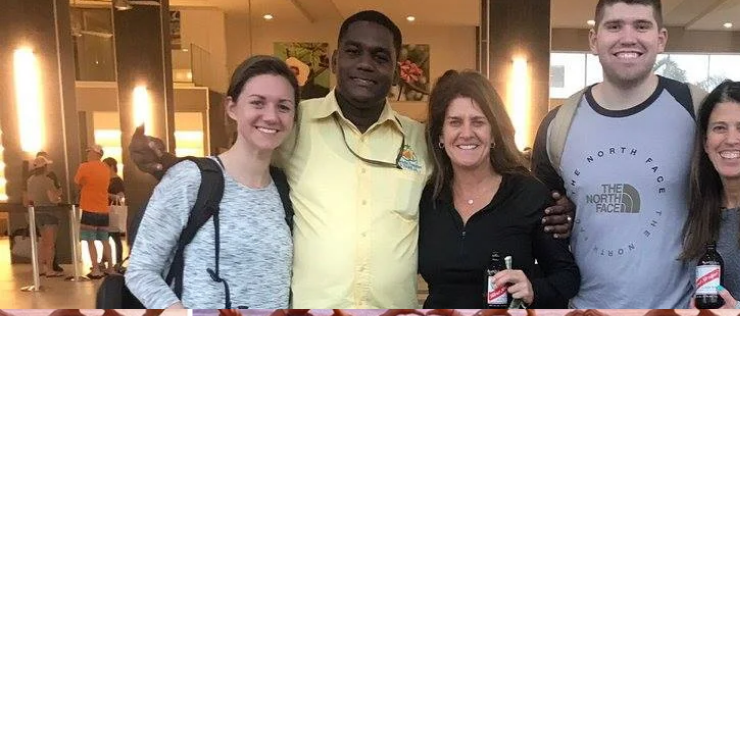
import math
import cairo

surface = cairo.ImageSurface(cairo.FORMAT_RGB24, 740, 731)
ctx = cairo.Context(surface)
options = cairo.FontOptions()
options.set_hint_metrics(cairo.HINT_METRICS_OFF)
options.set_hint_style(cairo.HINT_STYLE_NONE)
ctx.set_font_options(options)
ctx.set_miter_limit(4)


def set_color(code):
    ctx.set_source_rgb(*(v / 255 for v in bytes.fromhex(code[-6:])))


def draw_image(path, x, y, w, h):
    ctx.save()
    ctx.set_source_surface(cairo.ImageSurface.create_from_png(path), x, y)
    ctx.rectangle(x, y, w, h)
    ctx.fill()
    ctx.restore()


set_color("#ffffff")
ctx.paint()
draw_image("assets/img1.png", 0, 0, 740, 309)
draw_image("assets/img2.png", 0, 309, 740, 7)
surface.write_to_png("output.png")
